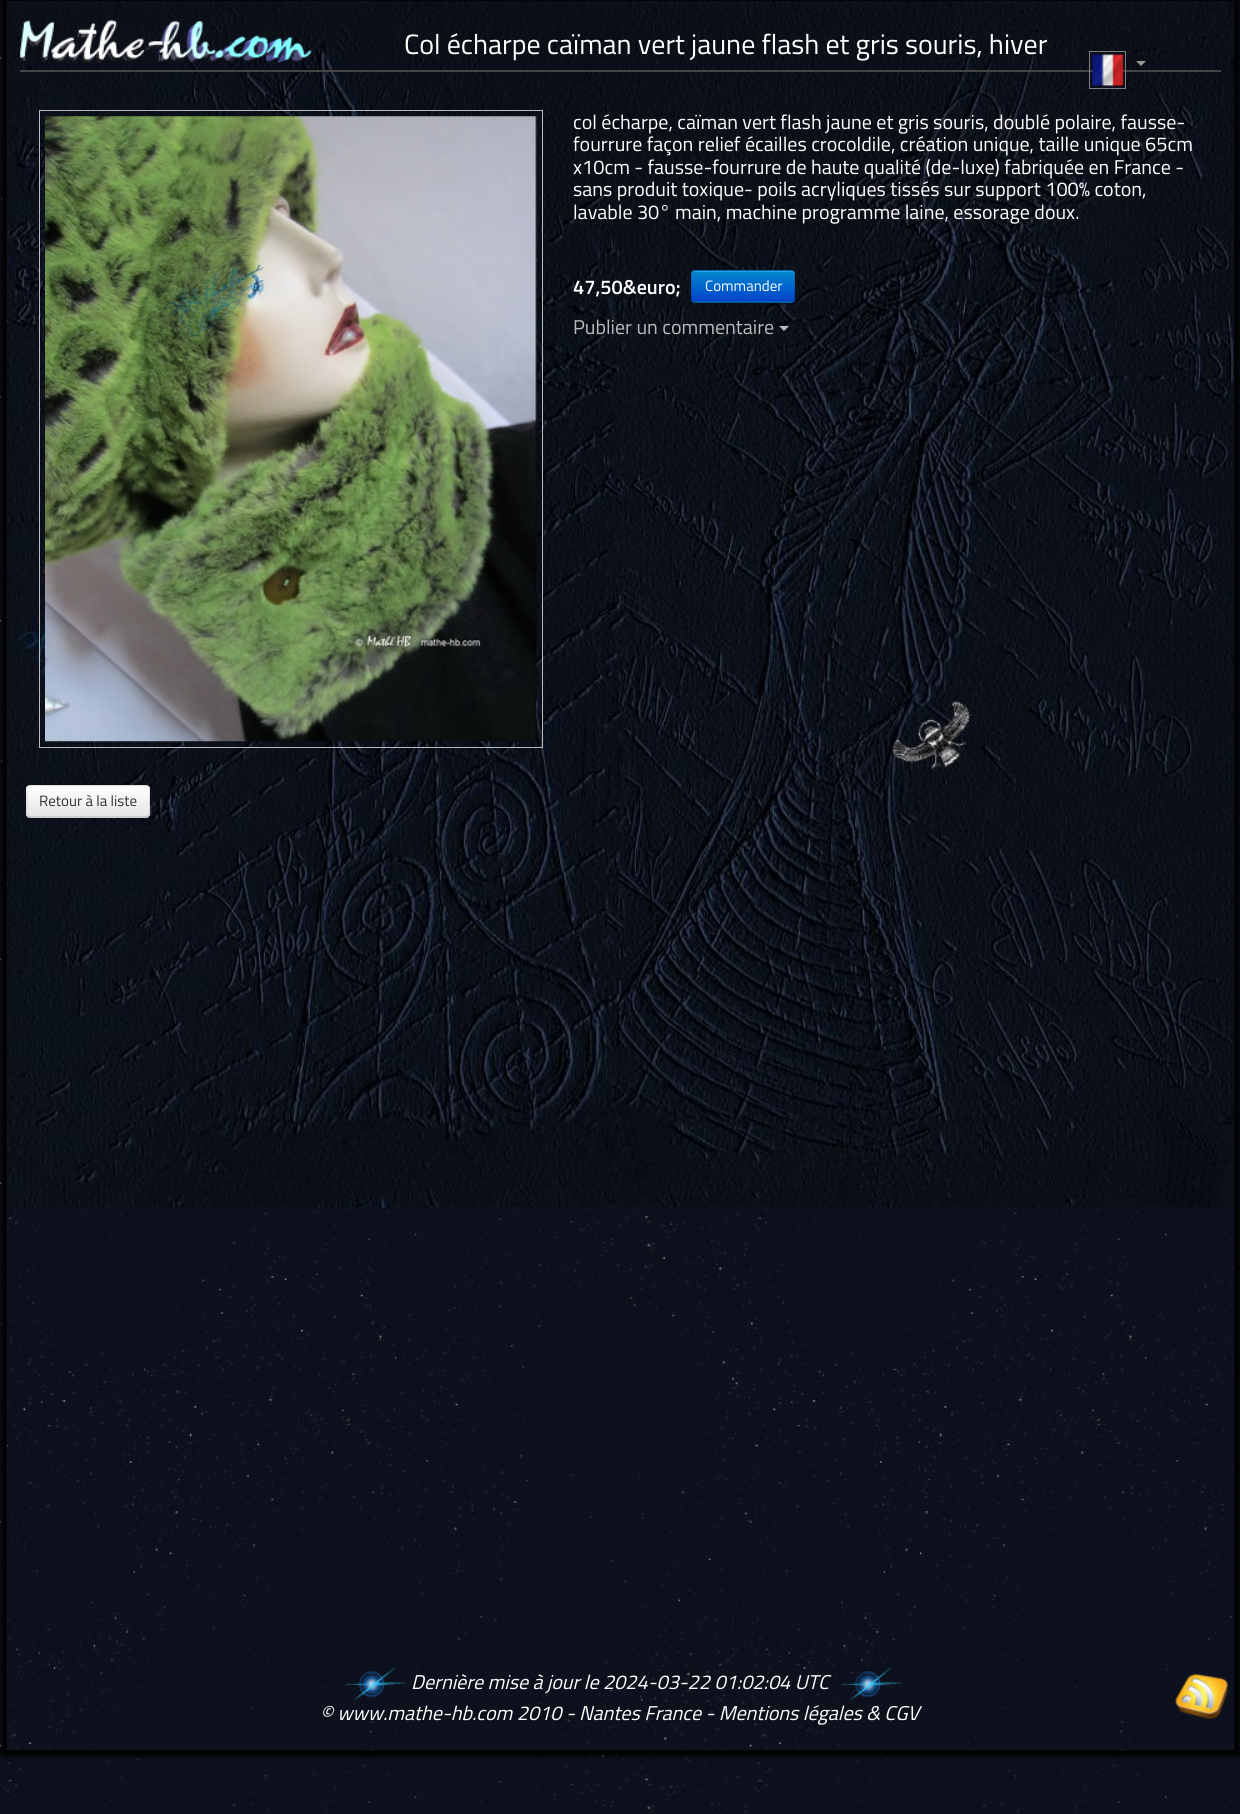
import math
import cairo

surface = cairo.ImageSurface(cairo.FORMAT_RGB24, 1240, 1814)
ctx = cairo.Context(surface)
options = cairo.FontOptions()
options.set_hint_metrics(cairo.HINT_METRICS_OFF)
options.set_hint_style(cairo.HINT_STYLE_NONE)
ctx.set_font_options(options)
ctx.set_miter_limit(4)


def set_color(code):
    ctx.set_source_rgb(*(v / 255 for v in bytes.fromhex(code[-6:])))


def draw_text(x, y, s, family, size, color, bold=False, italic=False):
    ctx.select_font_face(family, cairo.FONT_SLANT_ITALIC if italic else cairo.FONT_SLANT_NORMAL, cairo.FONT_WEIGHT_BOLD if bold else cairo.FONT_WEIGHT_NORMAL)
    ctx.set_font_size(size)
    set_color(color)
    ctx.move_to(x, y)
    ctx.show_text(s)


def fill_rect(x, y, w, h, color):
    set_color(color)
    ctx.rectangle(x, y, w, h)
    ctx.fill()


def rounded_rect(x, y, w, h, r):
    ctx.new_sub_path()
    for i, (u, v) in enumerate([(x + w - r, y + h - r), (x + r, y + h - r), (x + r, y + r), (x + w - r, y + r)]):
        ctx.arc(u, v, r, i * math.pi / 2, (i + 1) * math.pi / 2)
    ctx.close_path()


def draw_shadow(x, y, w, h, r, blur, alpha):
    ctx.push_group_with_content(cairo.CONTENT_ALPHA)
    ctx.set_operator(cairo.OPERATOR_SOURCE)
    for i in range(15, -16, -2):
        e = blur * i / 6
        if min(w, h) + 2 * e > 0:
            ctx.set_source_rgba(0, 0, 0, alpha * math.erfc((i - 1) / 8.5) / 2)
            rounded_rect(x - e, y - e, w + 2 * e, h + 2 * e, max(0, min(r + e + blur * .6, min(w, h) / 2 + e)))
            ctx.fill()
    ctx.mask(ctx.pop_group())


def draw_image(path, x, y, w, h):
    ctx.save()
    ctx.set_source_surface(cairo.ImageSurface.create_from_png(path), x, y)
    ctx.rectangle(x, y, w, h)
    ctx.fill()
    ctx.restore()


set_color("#ffffff")
ctx.paint()
draw_image("assets/img1.png", 0, 0, 1240, 1814)
ctx.save()
ctx.set_fill_rule(cairo.FILL_RULE_EVEN_ODD)
ctx.new_path()
ctx.move_to(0, 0)
ctx.line_to(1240, 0)
ctx.line_to(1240, 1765)
ctx.line_to(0, 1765)
ctx.close_path()
ctx.move_to(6, 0)
ctx.line_to(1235, 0)
ctx.line_to(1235, 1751)
ctx.line_to(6, 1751)
ctx.close_path()
ctx.clip()
set_color("#000000")
draw_shadow(1, -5, 1239, 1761, 0, 2.5, 1)
ctx.restore()
draw_image("assets/img2.png", 7, 1, 1227, 1207)
ctx.rectangle(6.5, 0.5, 1228, 1750)
set_color("#050505")
ctx.set_line_width(1)
ctx.stroke()
draw_image("assets/img3.png", 20, 20, 292, 43)
draw_text(404, 54, "Col écharpe caïman vert jaune flash et gris souris, hiver", "Titillium Web", 28, "#ffffff")
fill_rect(20, 70, 1201, 2, "#444444")
ctx.rectangle(39.5, 110.5, 503, 637)
set_color("#bbbbbb")
ctx.stroke()
draw_image("assets/img4.png", 45, 116, 492, 626)
draw_text(573, 129, "col écharpe, caïman vert flash jaune et gris souris, doublé polaire, fausse-", "Titillium Web", 20, "#ffffff")
draw_text(573, 151, "fourrure façon relief écailles crocoldile, création unique, taille unique 65cm", "Titillium Web", 20, "#ffffff")
draw_text(573, 174, "x10cm - fausse-fourrure de haute qualité (de-luxe) fabriquée en France -", "Titillium Web", 20, "#ffffff")
draw_text(573, 196, "sans produit toxique- poils acryliques tissés sur support 100% coton,", "Titillium Web", 20, "#ffffff")
draw_text(573, 219, "lavable 30° main, machine programme laine, essorage doux.", "Titillium Web", 20, "#ffffff")
draw_text(573, 294, "47,50&euro;", "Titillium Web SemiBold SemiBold", 20, "#ffffff")
set_color("#006dcc")
rounded_rect(691, 270, 104, 33, 4)
ctx.fill()
ctx.save()
rounded_rect(691, 270, 104, 33, 4)
ctx.clip()
gradient = cairo.LinearGradient(743, 271, 743, 301)
gradient.add_color_stop_rgba(0, 0, 0.533, 0.8, 1)
gradient.add_color_stop_rgba(1, 0, 0.267, 0.8, 1)
ctx.set_source(gradient)
ctx.rectangle(691, 271, 104, 30)
ctx.fill()
ctx.restore()
set_color("#339fd6")
ctx.new_path()
ctx.move_to(695, 272)
ctx.line_to(791, 272)
ctx.curve_to(793, 272, 794, 274, 794, 275)
ctx.line_to(794, 274)
ctx.curve_to(794, 272, 793, 271, 792, 271)
ctx.line_to(696, 271)
ctx.curve_to(694, 271, 693, 272, 693, 273)
ctx.close_path()
ctx.fill()
ctx.new_path()
ctx.move_to(793.5, 301)
ctx.line_to(793, 301)
ctx.curve_to(791, 303, 720, 302, 711, 302)
ctx.line_to(695, 302)
ctx.line_to(693, 301)
ctx.set_source_rgba(0, 0, 0, 0.25)
ctx.set_line_width(1.2)
ctx.stroke()
ctx.new_path()
ctx.move_to(693, 301)
ctx.curve_to(690.5, 299, 692, 293, 692, 290.5)
ctx.curve_to(692, 267, 687.5, 270.5, 711, 270.5)
ctx.line_to(775, 270.5)
ctx.curve_to(799, 270.5, 794.5, 267, 794.5, 290.5)
ctx.curve_to(794.5, 293, 795.5, 299, 793.5, 301)
ctx.set_source_rgba(0, 0, 0, 0.1)
ctx.stroke()
draw_text(705, 291, "Commander", "Titillium Web", 15, "#ffffff")
draw_text(573, 334, "Publier un commentaire", "Titillium Web", 20, "#bbbbbb")
ctx.new_path()
ctx.move_to(779, 326)
ctx.line_to(789, 326)
ctx.line_to(784, 331)
ctx.close_path()
ctx.fill()
set_color("#f5f5f5")
rounded_rect(26, 785, 124, 33, 4)
ctx.fill()
ctx.save()
rounded_rect(26, 785, 124, 33, 4)
ctx.clip()
gradient = cairo.LinearGradient(88, 786, 88, 816)
gradient.add_color_stop_rgba(0, 1, 1, 1, 1)
gradient.add_color_stop_rgba(1, 0.902, 0.902, 0.902, 1)
ctx.set_source(gradient)
ctx.rectangle(26, 786, 124, 30)
ctx.fill()
ctx.restore()
ctx.new_path()
ctx.move_to(148.5, 816)
ctx.line_to(146, 817)
ctx.line_to(30, 817)
ctx.line_to(28, 816)
set_color("#b3b3b3")
ctx.stroke()
ctx.new_path()
ctx.move_to(28, 816)
ctx.curve_to(25.5, 814, 27, 808, 27, 805.5)
ctx.curve_to(27, 781, 22.5, 785.5, 49.5, 785.5)
ctx.line_to(127, 785.5)
ctx.curve_to(153.5, 785.5, 149.5, 781, 149.5, 805.5)
ctx.curve_to(149.5, 808, 150.5, 814, 148.5, 816)
ctx.set_source_rgba(0, 0, 0, 0.1)
ctx.stroke()
draw_text(39, 806, "Retour à la liste", "Titillium Web", 15, "#333333")
ctx.rectangle(1089.5, 51.5, 36, 37)
set_color("#808080")
ctx.set_line_width(1)
ctx.stroke()
draw_image("assets/img5.png", 1091, 54, 33, 33)
set_color("#999999")
ctx.new_path()
ctx.move_to(1136, 61)
ctx.line_to(1146, 61)
ctx.line_to(1141, 66)
ctx.close_path()
ctx.fill()
draw_image("assets/img6.png", 346, 1666, 60, 35)
draw_text(411, 1689, "Dernière mise à jour le 2024-03-22 01:02:04 UTC", "Titillium Web", 20, "#ffffff", italic=True)
draw_image("assets/img7.png", 842, 1666, 61, 35)
draw_text(320, 1720, "© www.mathe-hb.com 2010 - Nantes France - Mentions légales & CGV", "Titillium Web", 20, "#ffffff", italic=True)
draw_image("assets/img8.png", 1175, 1673, 53, 47)
surface.write_to_png("output.png")
